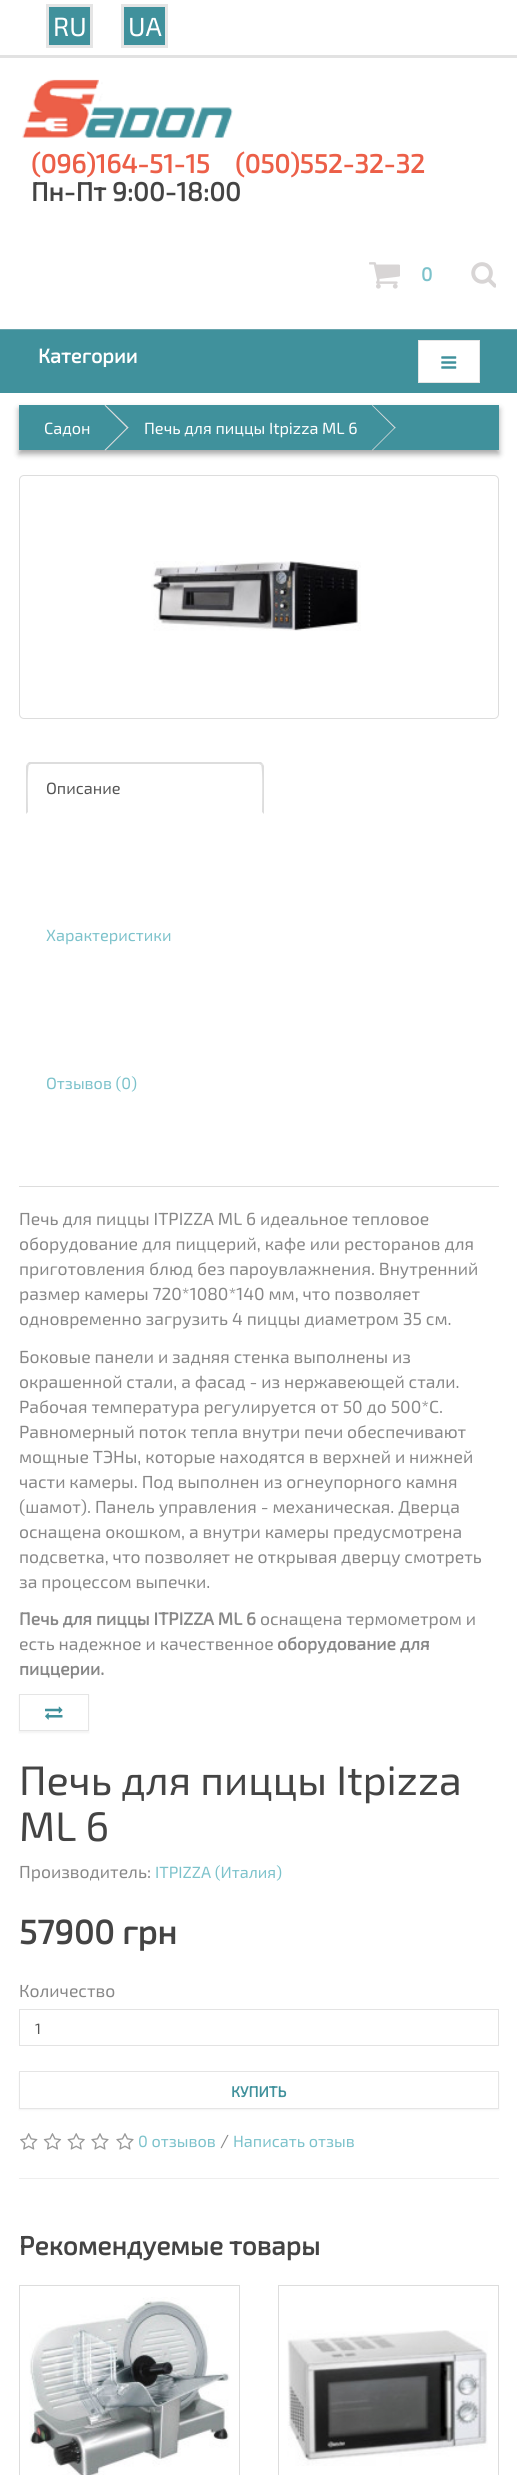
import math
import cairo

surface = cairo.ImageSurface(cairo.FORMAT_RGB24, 517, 2475)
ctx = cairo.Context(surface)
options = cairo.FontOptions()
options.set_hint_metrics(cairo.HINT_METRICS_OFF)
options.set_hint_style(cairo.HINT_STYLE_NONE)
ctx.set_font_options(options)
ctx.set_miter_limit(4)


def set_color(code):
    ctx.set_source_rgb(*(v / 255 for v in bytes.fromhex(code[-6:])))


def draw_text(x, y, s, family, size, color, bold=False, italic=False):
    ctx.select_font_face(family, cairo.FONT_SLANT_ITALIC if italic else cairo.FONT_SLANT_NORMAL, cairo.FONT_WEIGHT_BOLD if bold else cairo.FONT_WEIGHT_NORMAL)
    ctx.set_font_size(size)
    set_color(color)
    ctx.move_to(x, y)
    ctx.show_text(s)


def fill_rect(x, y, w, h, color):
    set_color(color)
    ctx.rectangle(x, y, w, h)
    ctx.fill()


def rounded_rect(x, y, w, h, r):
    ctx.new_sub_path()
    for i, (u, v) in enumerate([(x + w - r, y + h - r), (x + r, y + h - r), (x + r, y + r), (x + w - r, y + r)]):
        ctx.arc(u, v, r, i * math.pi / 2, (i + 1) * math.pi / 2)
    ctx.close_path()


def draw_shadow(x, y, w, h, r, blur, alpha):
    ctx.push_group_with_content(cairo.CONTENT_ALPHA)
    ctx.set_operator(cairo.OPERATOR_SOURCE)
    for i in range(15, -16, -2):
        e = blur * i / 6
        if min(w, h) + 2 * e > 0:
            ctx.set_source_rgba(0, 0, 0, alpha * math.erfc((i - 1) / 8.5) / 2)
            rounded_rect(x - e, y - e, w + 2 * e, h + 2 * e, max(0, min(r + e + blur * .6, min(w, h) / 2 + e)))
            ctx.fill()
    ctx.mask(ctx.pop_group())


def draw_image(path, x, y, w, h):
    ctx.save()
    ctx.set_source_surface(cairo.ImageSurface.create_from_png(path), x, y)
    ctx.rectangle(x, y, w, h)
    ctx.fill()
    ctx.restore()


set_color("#ffffff")
ctx.paint()
fill_rect(0, 55, 517, 3, "#e2e2e2")
set_color("#40919c")
ctx.rectangle(47.5, 5.5, 44, 41)
ctx.fill_preserve()
set_color("#e5e5e5")
ctx.set_line_width(3)
ctx.stroke()
draw_text(53, 36, "RU", "Exo 2", 26.25, "#ffffff")
set_color("#40919c")
ctx.rectangle(122.5, 5.5, 44, 41)
ctx.fill_preserve()
set_color("#e5e5e5")
ctx.stroke()
draw_text(128, 36, "UA", "Exo 2", 26.25, "#ffffff")
draw_image("assets/img1.png", 22, 79, 211, 59)
draw_text(31, 173, "(096)164-51-15", "Exo 2", 26.25, "#ec5f48", bold=True)
draw_text(235, 173, "(050)552-32-32", "Exo 2", 26.25, "#ec5f48", bold=True)
draw_text(31, 201, "Пн-Пт 9:00-18:00", "Exo 2", 26.25, "#444444", bold=True)
draw_image("assets/img2.png", 369, 262, 31, 27)
draw_text(421, 281, "0", "Exo 2", 19, "#7cc2cb", bold=True)
draw_image("assets/img3.png", 471, 262, 25, 26)
fill_rect(0, 330, 517, 63, "#40919c")
fill_rect(0, 329, 517, 1, "#6aa5ad")
draw_text(38, 363, "Категории", "Exo 2", 20, "#ffffff", bold=True)
ctx.rectangle(418.5, 340.5, 61, 42)
ctx.fill_preserve()
set_color("#e5e5e5")
ctx.set_line_width(1)
ctx.stroke()
draw_image("assets/img4.png", 441, 356, 16, 13)
set_color("#000000")
draw_shadow(19, 409, 480, 45, 0, 3, 0.35)
fill_rect(19, 405, 480, 45, "#40919c")
draw_text(44, 434, "Садон", "Exo 2", 16.25, "#ffffff")
set_color("#dddddd")
ctx.new_path()
ctx.move_to(104.5, 405.5)
ctx.line_to(105.5, 405)
ctx.line_to(128.5, 427.5)
ctx.line_to(127.5, 428.5)
ctx.close_path()
ctx.fill()
ctx.new_path()
ctx.move_to(104.5, 450)
ctx.line_to(127.5, 427)
ctx.line_to(128.5, 427.5)
ctx.line_to(105.5, 450.5)
ctx.close_path()
ctx.fill()
draw_text(144, 434, "Печь для пиццы Itpizza ML 6", "Exo 2", 16.25, "#ffffff")
set_color("#dddddd")
ctx.new_path()
ctx.move_to(372, 405.5)
ctx.line_to(372.5, 405)
ctx.line_to(395.5, 427.5)
ctx.line_to(395, 428.5)
ctx.close_path()
ctx.fill()
ctx.new_path()
ctx.move_to(372, 450)
ctx.line_to(395, 427)
ctx.line_to(395.5, 427.5)
ctx.line_to(372.5, 450.5)
ctx.close_path()
ctx.fill()
rounded_rect(19.5, 475.5, 479, 243, 4.5)
ctx.stroke()
draw_image("assets/img5.png", 151, 561, 210, 70)
fill_rect(19, 1186, 480, 1, "#dddddd")
ctx.new_path()
ctx.move_to(31, 764)
ctx.line_to(29, 765)
ctx.line_to(27, 764)
ctx.line_to(29, 762)
ctx.line_to(261, 762)
ctx.line_to(263, 764)
ctx.line_to(261, 765)
ctx.line_to(259, 764)
ctx.close_path()
ctx.fill()
ctx.new_path()
ctx.move_to(263, 764)
ctx.line_to(264, 766)
ctx.line_to(264, 814)
ctx.line_to(262, 812)
ctx.curve_to(262, 806, 263, 767, 261, 765)
ctx.close_path()
ctx.fill()
ctx.new_path()
ctx.move_to(26, 814)
ctx.line_to(26, 766)
ctx.line_to(27, 764)
ctx.line_to(29, 765)
ctx.curve_to(27, 767, 28, 806, 28, 812)
ctx.close_path()
ctx.fill()
draw_text(46, 794, "Описание", "Exo 2", 16.25, "#555555")
draw_text(46, 941, "Характеристики", "Exo 2", 16.25, "#7cc2cb")
draw_text(46, 1089, "Отзывов (0)", "Exo 2", 16.25, "#7cc2cb")
draw_text(19, 1225, "Печь для пиццы ITPIZZA ML 6 идеальное тепловое", "Exo 2", 17.5, "#888888")
draw_text(19, 1250, "оборудование для пиццерий, кафе или ресторанов для", "Exo 2", 17.5, "#888888")
draw_text(19, 1275, "приготовления блюд без пароувлажнения. Внутренний", "Exo 2", 17.5, "#888888")
draw_text(19, 1300, "размер камеры 720*1080*140 мм, что позволяет", "Exo 2", 17.5, "#888888")
draw_text(19, 1325, "одновременно загрузить 4 пиццы диаметром 35 см.", "Exo 2", 17.5, "#888888")
draw_text(19, 1363, "Боковые панели и задняя стенка выполнены из", "Exo 2", 17.5, "#888888")
draw_text(19, 1388, "окрашенной стали, а фасад - из нержавеющей стали.", "Exo 2", 17.5, "#888888")
draw_text(19, 1413, "Рабочая температура регулируется от 50 до 500*С.", "Exo 2", 17.5, "#888888")
draw_text(19, 1438, "Равномерный поток тепла внутри печи обеспечивают", "Exo 2", 17.5, "#888888")
draw_text(19, 1463, "мощные ТЭНы, которые находятся в верхней и нижней", "Exo 2", 17.5, "#888888")
draw_text(19, 1488, "части камеры. Под выполнен из огнеупорного камня", "Exo 2", 17.5, "#888888")
draw_text(19, 1513, "(шамот). Панель управления - механическая. Дверца", "Exo 2", 17.5, "#888888")
draw_text(19, 1538, "оснащена окошком, а внутри камеры предусмотрена", "Exo 2", 17.5, "#888888")
draw_text(19, 1563, "подсветка, что позволяет не открывая дверцу смотреть", "Exo 2", 17.5, "#888888")
draw_text(19, 1588, "за процессом выпечки.", "Exo 2", 17.5, "#888888")
draw_text(19, 1625, "Печь для пиццы ITPIZZA ML 6", "Exo 2", 17.5, "#888888", bold=True)
draw_text(260, 1625, "оснащена термометром и", "Exo 2", 17.5, "#888888")
draw_text(19, 1650, "есть надежное и качественное", "Exo 2", 17.5, "#888888")
draw_text(277, 1650, "оборудование для", "Exo 2", 17.5, "#888888", bold=True)
draw_text(19, 1675, "пиццерии.", "Exo 2", 17.5, "#888888", bold=True)
set_color("#000000")
draw_shadow(19, 1695, 70, 38, 0, 1, 0.05)
set_color("#ffffff")
ctx.rectangle(19.5, 1694.5, 69, 36)
ctx.fill_preserve()
set_color("#e5e5e5")
ctx.stroke()
draw_image("assets/img6.png", 45, 1706, 18, 14)
draw_text(19, 1795, "Печь для пиццы Itpizza", "Exo 2", 41.25, "#444444")
draw_text(19, 1841, "ML 6", "Exo 2", 41.25, "#444444")
draw_text(19, 1878, "Производитель:", "Exo 2", 17.5, "#888888")
draw_text(155, 1878, "ITPIZZA (Италия)", "Exo 2", 16.25, "#7cc2cb")
draw_text(19, 1944, "57900 грн", "Exo 2", 33.75, "#444444", bold=True)
draw_text(19, 1997, "Количество", "Exo 2", 17.5, "#888888")
ctx.rectangle(19.5, 2009.5, 479, 36)
set_color("#e3e3e3")
ctx.stroke()
draw_text(35, 2034, "1", "Exo 2", 15, "#555555")
set_color("#000000")
draw_shadow(19, 2073, 480, 37, 0, 1, 0.05)
set_color("#ffffff")
ctx.rectangle(19.5, 2071.5, 479, 37)
ctx.fill_preserve()
set_color("#e5e5e5")
ctx.stroke()
draw_text(231, 2097, "КУПИТЬ", "Exo 2", 15, "#40919c", bold=True)
draw_image("assets/img7.png", 20, 2133, 18, 17)
draw_image("assets/img8.png", 43, 2133, 19, 17)
draw_image("assets/img9.png", 67, 2133, 18, 17)
draw_image("assets/img10.png", 91, 2133, 18, 17)
draw_image("assets/img10.png", 116, 2133, 18, 17)
draw_text(138, 2147, "0 отзывов", "Exo 2", 16.25, "#7cc2cb")
draw_text(220, 2147, "/", "Exo 2", 17.5, "#888888")
draw_text(233, 2147, "Написать отзыв", "Exo 2", 16.25, "#7cc2cb")
fill_rect(19, 2178, 480, 1, "#eeeeee")
draw_text(19, 2255, "Рекомендуемые товары", "Exo 2", 26.25, "#444444", bold=True)
ctx.rectangle(19.5, 2285.5, 220, 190)
set_color("#dddddd")
ctx.stroke()
draw_image("assets/img11.png", 29, 2297, 201, 178)
ctx.rectangle(278.5, 2285.5, 220, 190)
ctx.stroke()
draw_image("assets/img12.png", 287, 2330, 201, 136)
surface.write_to_png("output.png")
